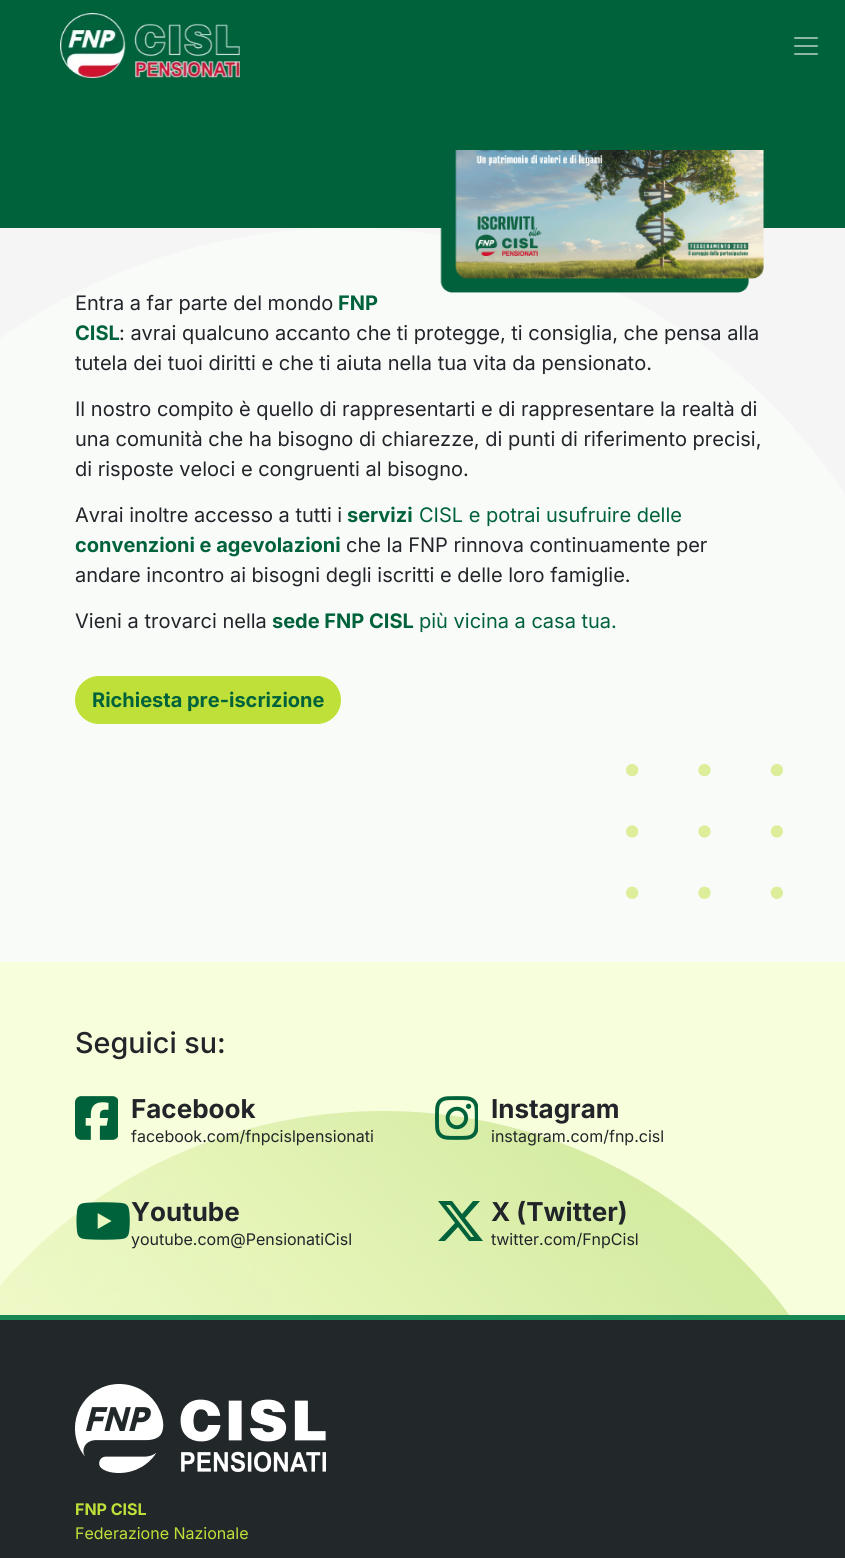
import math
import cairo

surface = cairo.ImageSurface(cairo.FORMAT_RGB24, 845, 1558)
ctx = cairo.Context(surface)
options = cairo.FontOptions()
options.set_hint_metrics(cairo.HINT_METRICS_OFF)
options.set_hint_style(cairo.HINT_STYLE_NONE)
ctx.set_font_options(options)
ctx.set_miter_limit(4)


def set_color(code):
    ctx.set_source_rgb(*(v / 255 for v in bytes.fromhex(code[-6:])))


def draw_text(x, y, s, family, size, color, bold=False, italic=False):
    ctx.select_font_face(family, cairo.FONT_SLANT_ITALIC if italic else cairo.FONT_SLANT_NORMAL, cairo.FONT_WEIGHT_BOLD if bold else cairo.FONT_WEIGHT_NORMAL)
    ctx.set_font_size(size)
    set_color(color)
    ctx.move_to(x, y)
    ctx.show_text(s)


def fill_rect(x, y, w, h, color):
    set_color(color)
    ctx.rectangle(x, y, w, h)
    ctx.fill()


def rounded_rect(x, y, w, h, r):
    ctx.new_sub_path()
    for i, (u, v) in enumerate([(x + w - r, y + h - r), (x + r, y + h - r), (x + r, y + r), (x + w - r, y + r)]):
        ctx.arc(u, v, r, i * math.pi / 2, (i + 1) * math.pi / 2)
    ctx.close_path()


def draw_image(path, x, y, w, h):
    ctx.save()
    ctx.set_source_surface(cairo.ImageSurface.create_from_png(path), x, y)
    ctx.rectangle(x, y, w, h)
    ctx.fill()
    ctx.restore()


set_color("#00623b")
ctx.paint()
draw_image("assets/img1.png", 60, 13, 180, 65)
draw_image("assets/img2.png", 794, 37, 24, 18)
fill_rect(0, 228, 845, 266, "#f5f5f5")
draw_image("assets/img3.png", 0, 228, 845, 734)
draw_image("assets/img4.png", 440, 150, 324, 143)
draw_text(75, 310, "Entra a far parte del mondo", "Inter", 20, "#212529")
draw_text(338, 310, "FNP", "Inter", 20, "#00623b", bold=True)
draw_text(75, 340, "CISL", "Inter", 20, "#00623b", bold=True)
draw_text(119, 340, ": avrai qualcuno accanto che ti protegge, ti consiglia, che pensa alla", "Inter", 20, "#212529")
draw_text(75, 370, "tutela dei tuoi diritti e che ti aiuta nella tua vita da pensionato.", "Inter", 20, "#212529")
draw_text(75, 416, "Il nostro compito è quello di rappresentarti e di rappresentare la realtà di", "Inter", 20, "#212529")
draw_text(75, 446, "una comunità che ha bisogno di chiarezze, di punti di riferimento precisi,", "Inter", 20, "#212529")
draw_text(75, 476, "di risposte veloci e congruenti al bisogno.", "Inter", 20, "#212529")
draw_text(75, 522, "Avrai inoltre accesso a tutti i", "Inter", 20, "#212529")
draw_text(347, 522, "servizi", "Inter", 20, "#00623b", bold=True)
draw_text(419, 522, "CISL e potrai usufruire delle", "Inter", 20, "#00623b")
draw_text(75, 552, "convenzioni e agevolazioni", "Inter", 20, "#00623b", bold=True)
draw_text(346, 552, "che la FNP rinnova continuamente per", "Inter", 20, "#212529")
draw_text(75, 582, "andare incontro ai bisogni degli iscritti e delle loro famiglie.", "Inter", 20, "#212529")
draw_text(75, 628, "Vieni a trovarci nella", "Inter", 20, "#212529")
draw_text(272, 628, "sede FNP CISL", "Inter", 20, "#00623b", bold=True)
draw_text(419, 628, "più vicina a casa tua.", "Inter", 20, "#00623b")
set_color("#bfe039")
rounded_rect(75, 676, 266, 48, 24)
ctx.fill()
draw_text(92, 707, "Richiesta pre-iscrizione", "Inter", 20, "#00623b", bold=True)
draw_image("assets/img5.png", 626, 764, 157, 135)
fill_rect(0, 962, 845, 353, "#f7fedb")
draw_image("assets/img6.png", 0, 1111, 789, 204)
draw_text(75, 1053, "Seguici su:", "Inter Medium", 28.75, "#212529")
draw_image("assets/img7.png", 75, 1096, 43, 44)
draw_text(131, 1118, "Facebook", "Inter", 26, "#212529", bold=True)
draw_text(131, 1142, "facebook.com/fnpcislpensionati", "Inter", 16, "#212529")
draw_image("assets/img8.png", 76, 1202, 54, 38)
draw_text(131, 1221, "Youtube", "Inter", 26, "#212529", bold=True)
draw_text(131, 1245, "youtube.com@PensionatiCisl", "Inter", 16, "#212529")
draw_image("assets/img9.png", 435, 1096, 43, 44)
draw_text(491, 1118, "Instagram", "Inter", 26, "#212529", bold=True)
draw_text(491, 1142, "instagram.com/fnp.cisl", "Inter", 16, "#212529")
set_color("#00623b")
ctx.new_path()
ctx.move_to(473, 1201)
ctx.line_to(480, 1201)
ctx.line_to(465, 1218)
ctx.line_to(483, 1241)
ctx.line_to(469, 1241)
ctx.line_to(458, 1227)
ctx.line_to(445, 1241)
ctx.line_to(438, 1241)
ctx.line_to(455, 1223)
ctx.line_to(438, 1201)
ctx.line_to(452, 1201)
ctx.line_to(462, 1214)
ctx.close_path()
ctx.move_to(471, 1237)
ctx.line_to(474, 1237)
ctx.line_to(450, 1205)
ctx.line_to(446, 1205)
ctx.close_path()
ctx.fill()
draw_text(491, 1221, "X (Twitter)", "Inter", 26, "#212529", bold=True)
draw_text(491, 1245, "twitter.com/FnpCisl", "Inter", 16, "#212529")
fill_rect(0, 1320, 845, 238, "#22272a")
fill_rect(0, 1315, 845, 5, "#198754")
draw_image("assets/img10.png", 75, 1384, 251, 89)
draw_text(75, 1515, "FNP CISL", "Inter", 16, "#bfe039", bold=True)
draw_text(75, 1539, "Federazione Nazionale", "Inter", 16, "#bfe039")
surface.write_to_png("output.png")
